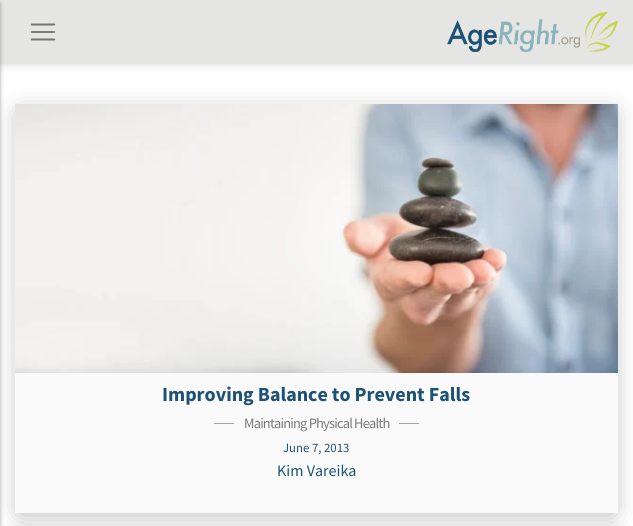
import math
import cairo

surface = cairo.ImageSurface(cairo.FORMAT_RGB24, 633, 526)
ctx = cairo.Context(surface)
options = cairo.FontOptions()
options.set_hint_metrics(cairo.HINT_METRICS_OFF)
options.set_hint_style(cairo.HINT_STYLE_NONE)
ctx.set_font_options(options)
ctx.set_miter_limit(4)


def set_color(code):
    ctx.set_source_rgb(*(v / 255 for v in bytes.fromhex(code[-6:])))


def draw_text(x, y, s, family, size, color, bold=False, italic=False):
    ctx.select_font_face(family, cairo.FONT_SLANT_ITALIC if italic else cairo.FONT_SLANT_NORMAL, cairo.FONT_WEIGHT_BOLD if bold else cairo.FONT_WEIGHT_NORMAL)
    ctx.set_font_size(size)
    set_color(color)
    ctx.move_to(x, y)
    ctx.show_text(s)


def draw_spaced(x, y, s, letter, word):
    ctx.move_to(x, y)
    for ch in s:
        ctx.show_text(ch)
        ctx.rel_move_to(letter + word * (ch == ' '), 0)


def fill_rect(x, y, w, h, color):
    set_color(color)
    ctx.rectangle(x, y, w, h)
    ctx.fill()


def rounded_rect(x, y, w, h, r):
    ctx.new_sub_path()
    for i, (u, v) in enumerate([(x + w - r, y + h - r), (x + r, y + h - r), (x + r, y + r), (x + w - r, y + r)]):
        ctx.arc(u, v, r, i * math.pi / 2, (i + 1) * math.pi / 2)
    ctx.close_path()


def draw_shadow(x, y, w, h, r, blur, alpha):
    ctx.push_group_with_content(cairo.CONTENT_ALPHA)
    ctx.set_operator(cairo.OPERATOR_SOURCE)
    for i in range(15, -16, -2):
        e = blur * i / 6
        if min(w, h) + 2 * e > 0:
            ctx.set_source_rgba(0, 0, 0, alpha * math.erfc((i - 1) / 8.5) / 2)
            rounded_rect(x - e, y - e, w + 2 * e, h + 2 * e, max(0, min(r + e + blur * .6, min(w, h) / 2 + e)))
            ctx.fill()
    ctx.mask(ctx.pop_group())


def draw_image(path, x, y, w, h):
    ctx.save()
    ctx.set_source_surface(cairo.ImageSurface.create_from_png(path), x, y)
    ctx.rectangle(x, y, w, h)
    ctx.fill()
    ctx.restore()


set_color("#ffffff")
ctx.paint()
set_color("#000000")
draw_shadow(0, 0, 633, 64, 0, 5, 0.15)
fill_rect(0, 0, 633, 64, "#e5e5e3")
draw_image("assets/img1.png", 30, 23, 26, 18)
draw_image("assets/img2.png", 447, 12, 171, 40)
set_color("#000000")
draw_shadow(-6, 4, 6, 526, 0, 2, 0.35)
draw_shadow(21, 114, 591, 397, 0, 12, 0.35)
fill_rect(15, 373, 603, 140, "#fafafa")
draw_image("assets/img3.png", 15, 104, 603, 269)
draw_text(162, 401, "Improving Balance to Prevent Falls", "Source Sans Pro", 20, "#1e5275", bold=True)
fill_rect(214, 423, 20, 1, "#a4a4a4")
ctx.select_font_face("Source Sans Pro")
ctx.set_font_size(14.4)
set_color("#7a7979")
draw_spaced(244, 428, "Maintaining Physical Health", -0.8, 0)
fill_rect(399, 423, 20, 1, "#a4a4a4")
draw_text(283, 452, "June 7, 2013", "Source Sans Pro", 12.75, "#1e5275")
draw_text(277, 476, "Kim Vareika", "Source Sans Pro", 16, "#1e5275")
set_color("#000000")
draw_shadow(21, 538, 591, 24, 0, 12, 0.35)
surface.write_to_png("output.png")
